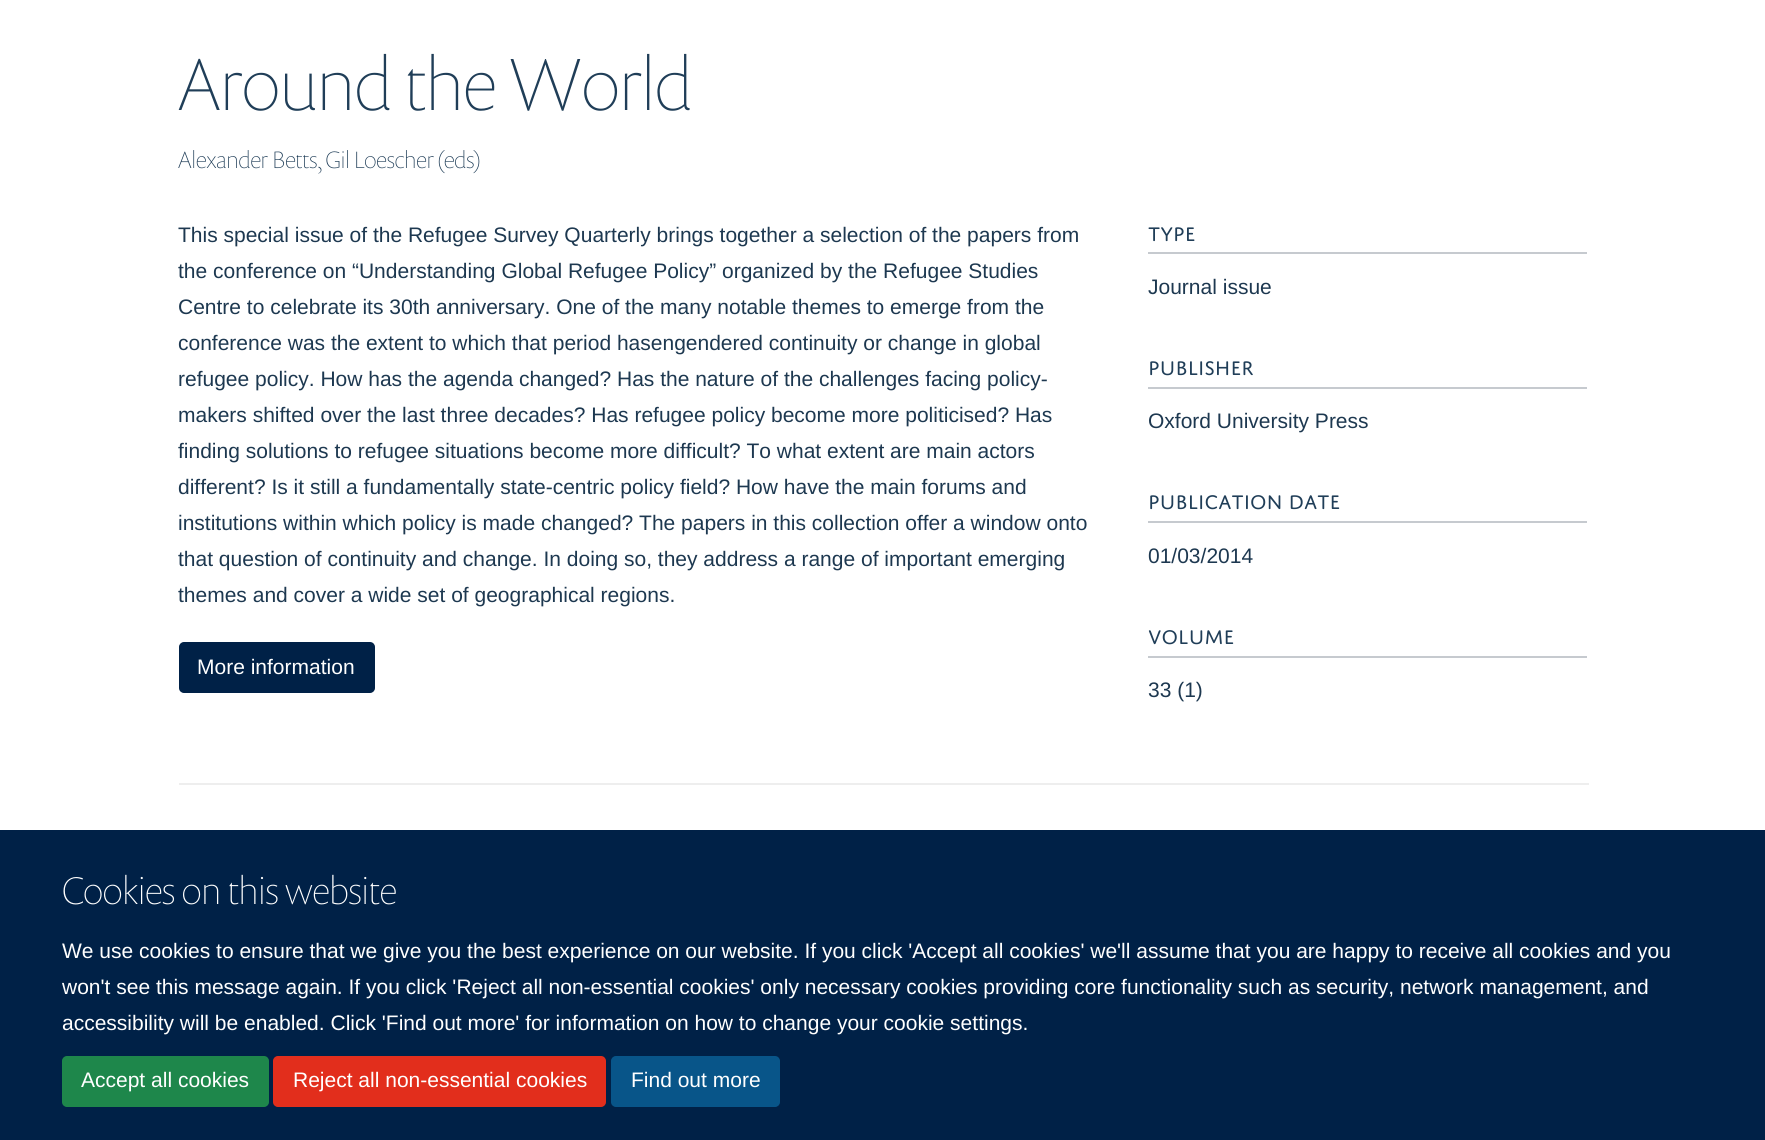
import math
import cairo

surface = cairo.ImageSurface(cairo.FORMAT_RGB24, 1765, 1140)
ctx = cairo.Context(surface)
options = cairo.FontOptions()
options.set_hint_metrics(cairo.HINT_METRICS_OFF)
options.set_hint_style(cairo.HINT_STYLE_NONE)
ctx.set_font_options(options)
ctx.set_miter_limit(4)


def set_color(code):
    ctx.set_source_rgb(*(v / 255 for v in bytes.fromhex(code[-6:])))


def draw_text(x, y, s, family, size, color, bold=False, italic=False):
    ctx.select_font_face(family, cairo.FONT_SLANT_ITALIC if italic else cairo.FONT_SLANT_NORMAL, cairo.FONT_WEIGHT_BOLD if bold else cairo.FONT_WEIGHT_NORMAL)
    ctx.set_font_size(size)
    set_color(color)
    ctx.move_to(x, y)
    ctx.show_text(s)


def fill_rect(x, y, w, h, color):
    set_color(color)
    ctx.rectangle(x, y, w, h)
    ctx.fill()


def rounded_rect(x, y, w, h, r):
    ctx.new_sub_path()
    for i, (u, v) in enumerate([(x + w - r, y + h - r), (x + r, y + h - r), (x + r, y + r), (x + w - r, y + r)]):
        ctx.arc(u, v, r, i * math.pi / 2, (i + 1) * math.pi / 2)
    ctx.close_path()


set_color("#ffffff")
ctx.paint()
draw_text(178, 110, "Around the World", "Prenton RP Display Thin", 75, "#203e58")
draw_text(178, 168, "Alexander Betts, Gil Loescher (eds)", "Prenton RP Display Thin", 24, "#203e58")
draw_text(178, 242, "This special issue of the Refugee Survey Quarterly brings together a selection of the papers from", "Liberation Sans", 21, "#1d3850")
draw_text(178, 278, "the conference on “Understanding Global Refugee Policy” organized by the Refugee Studies", "Liberation Sans", 21, "#1d3850")
draw_text(178, 314, "Centre to celebrate its 30th anniversary. One of the many notable themes to emerge from the", "Liberation Sans", 21, "#1d3850")
draw_text(178, 350, "conference was the extent to which that period hasengendered continuity or change in global", "Liberation Sans", 21, "#1d3850")
draw_text(178, 386, "refugee policy. How has the agenda changed? Has the nature of the challenges facing policy-", "Liberation Sans", 21, "#1d3850")
draw_text(178, 422, "makers shifted over the last three decades? Has refugee policy become more politicised? Has", "Liberation Sans", 21, "#1d3850")
draw_text(178, 458, "finding solutions to refugee situations become more difficult? To what extent are main actors", "Liberation Sans", 21, "#1d3850")
draw_text(178, 494, "different? Is it still a fundamentally state-centric policy field? How have the main forums and", "Liberation Sans", 21, "#1d3850")
draw_text(178, 530, "institutions within which policy is made changed? The papers in this collection offer a window onto", "Liberation Sans", 21, "#1d3850")
draw_text(178, 566, "that question of continuity and change. In doing so, they address a range of important emerging", "Liberation Sans", 21, "#1d3850")
draw_text(178, 602, "themes and cover a wide set of geographical regions.", "Liberation Sans", 21, "#1d3850")
set_color("#002147")
rounded_rect(180, 643, 194, 49, 4)
ctx.fill_preserve()
ctx.stroke()
draw_text(197, 674, "More information", "Liberation Sans", 21, "#ffffff")
fill_rect(1148, 252, 439, 2, "#c6cacf")
draw_text(1148, 241, "TYPE", "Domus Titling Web", 21, "#203e58")
draw_text(1148, 294, "Journal issue", "Liberation Sans", 21, "#1d3850")
fill_rect(1148, 387, 439, 2, "#c6cacf")
draw_text(1148, 375, "PUBLISHER", "Domus Titling Web", 21, "#203e58")
draw_text(1148, 428, "Oxford University Press", "Liberation Sans", 21, "#1d3850")
fill_rect(1148, 521, 439, 2, "#c6cacf")
draw_text(1148, 509, "PUBLICATION DATE", "Domus Titling Web", 21, "#203e58")
draw_text(1148, 563, "01/03/2014", "Liberation Sans", 21, "#1d3850")
fill_rect(1148, 656, 439, 2, "#c6cacf")
draw_text(1148, 644, "VOLUME", "Domus Titling Web", 21, "#203e58")
draw_text(1148, 697, "33 (1)", "Liberation Sans", 21, "#1d3850")
fill_rect(179, 783, 1410, 2, "#eeeeee")
fill_rect(0, 830, 1765, 310, "#002147")
draw_text(62, 904, "Cookies on this website", "Prenton RP Display Thin", 39, "#ffffff")
draw_text(62, 958, "We use cookies to ensure that we give you the best experience on our website. If you click 'Accept all cookies' we'll assume that you are happy to receive all cookies and you", "Liberation Sans", 21, "#ffffff")
draw_text(62, 994, "won't see this message again. If you click 'Reject all non-essential cookies' only necessary cookies providing core functionality such as security, network management, and", "Liberation Sans", 21, "#ffffff")
draw_text(62, 1030, "accessibility will be enabled. Click 'Find out more' for information on how to change your cookie settings.", "Liberation Sans", 21, "#ffffff")
set_color("#1e874b")
rounded_rect(63, 1057, 205, 49, 4)
ctx.fill_preserve()
ctx.stroke()
draw_text(81, 1087, "Accept all cookies", "Liberation Sans", 21, "#ffffff")
set_color("#e22e1c")
rounded_rect(274, 1057, 331, 49, 4)
ctx.fill_preserve()
ctx.stroke()
draw_text(293, 1087, "Reject all non-essential cookies", "Liberation Sans", 21, "#ffffff")
set_color("#085589")
rounded_rect(612, 1057, 167, 49, 4)
ctx.fill_preserve()
ctx.stroke()
draw_text(631, 1087, "Find out more", "Liberation Sans", 21, "#ffffff")
surface.write_to_png("output.png")
